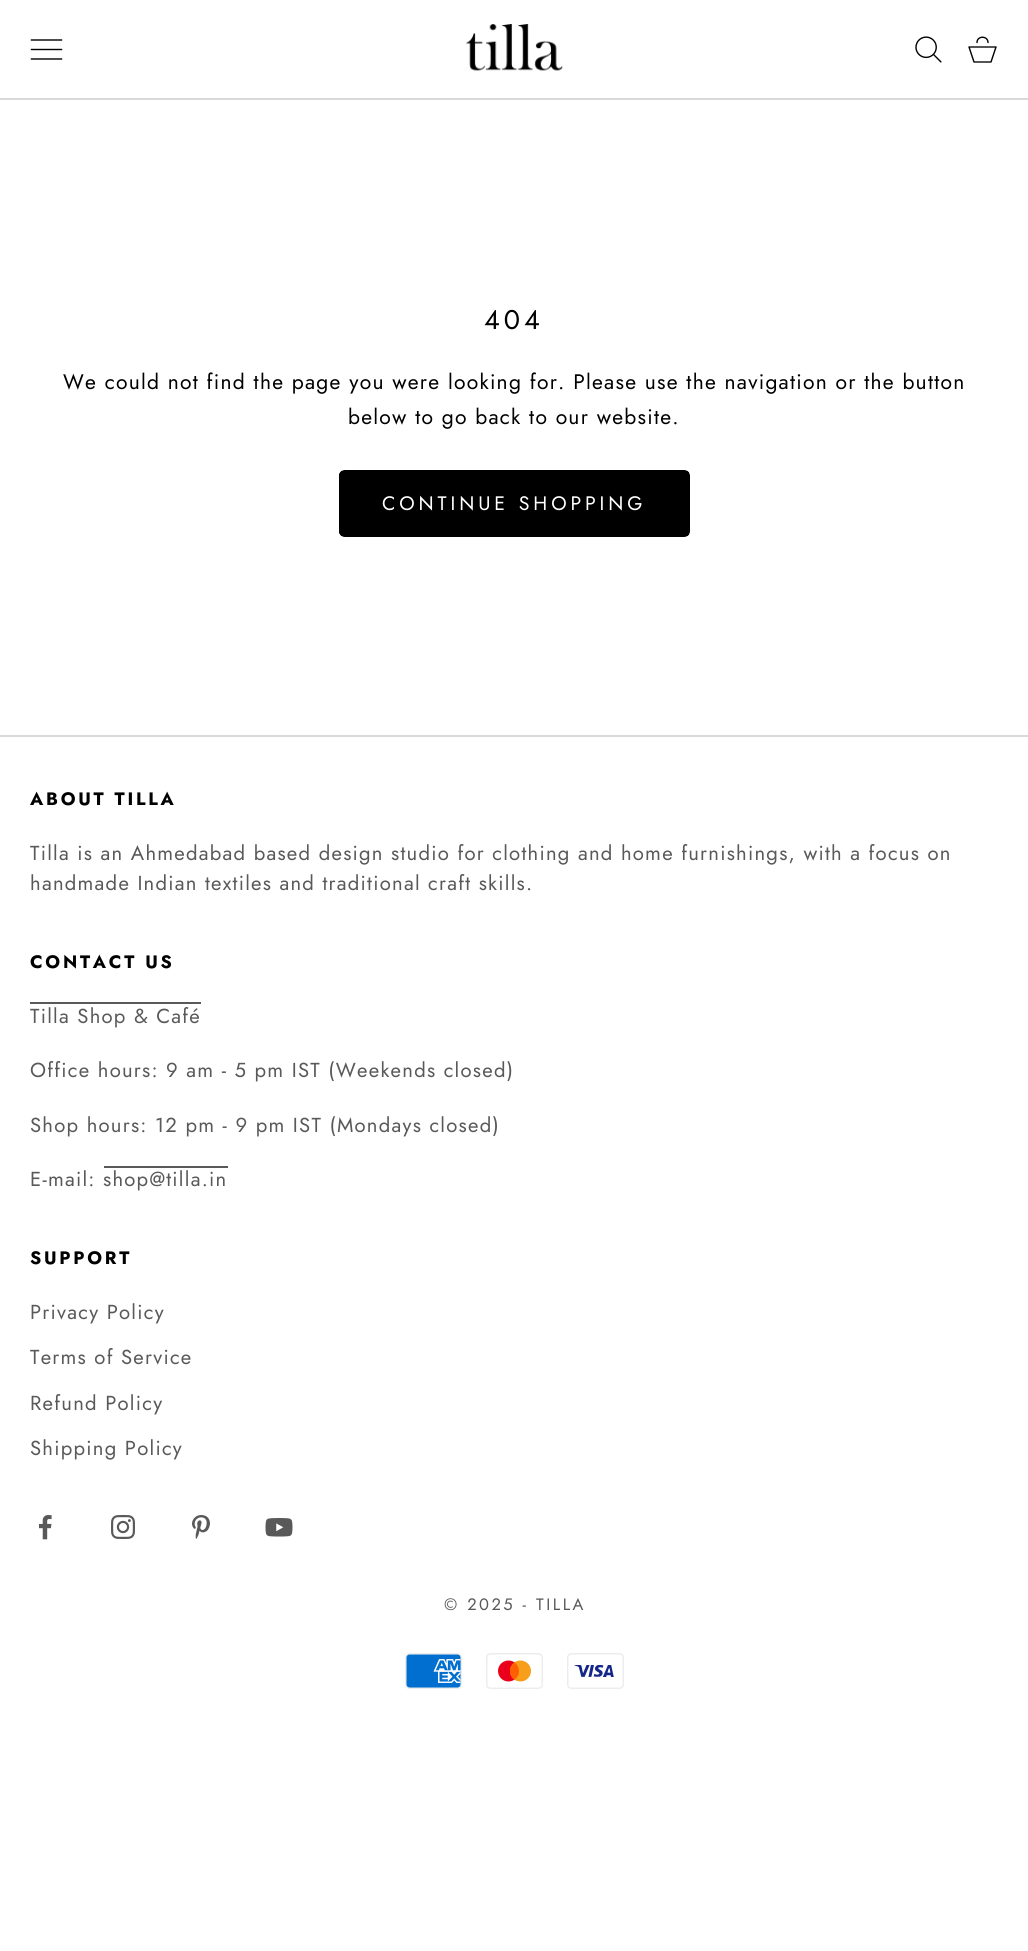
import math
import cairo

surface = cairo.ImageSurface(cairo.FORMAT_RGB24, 1028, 1951)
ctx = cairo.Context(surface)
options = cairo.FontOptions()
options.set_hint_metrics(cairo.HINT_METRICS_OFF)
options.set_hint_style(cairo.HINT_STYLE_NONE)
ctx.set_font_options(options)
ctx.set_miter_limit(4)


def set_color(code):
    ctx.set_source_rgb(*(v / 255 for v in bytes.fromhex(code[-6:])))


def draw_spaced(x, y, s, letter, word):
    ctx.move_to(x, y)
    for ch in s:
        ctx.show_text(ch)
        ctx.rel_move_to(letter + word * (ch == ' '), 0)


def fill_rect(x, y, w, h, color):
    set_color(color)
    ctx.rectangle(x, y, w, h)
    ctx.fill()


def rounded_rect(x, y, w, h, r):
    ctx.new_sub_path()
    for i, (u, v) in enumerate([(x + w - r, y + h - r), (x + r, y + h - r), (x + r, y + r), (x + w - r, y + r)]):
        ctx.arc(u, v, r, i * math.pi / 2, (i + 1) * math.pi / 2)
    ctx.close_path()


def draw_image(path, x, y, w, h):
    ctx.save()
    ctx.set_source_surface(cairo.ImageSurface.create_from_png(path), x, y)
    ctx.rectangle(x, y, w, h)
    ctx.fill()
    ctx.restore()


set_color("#ffffff")
ctx.paint()
fill_rect(0, 98, 1028, 2, "#d9d9d9")
ctx.new_path()
ctx.move_to(31.5, 59)
ctx.line_to(61.5, 59)
ctx.move_to(31.5, 49.5)
ctx.line_to(61.5, 49.5)
ctx.move_to(31.5, 40)
ctx.line_to(61.5, 40)
set_color("#000000")
ctx.set_line_width(1.4)
ctx.set_line_cap(cairo.LINE_CAP_SQUARE)
ctx.stroke()
draw_image("assets/img1.png", 466, 24, 97, 47)
draw_image("assets/img2.png", 915, 36, 27, 27)
ctx.new_path()
ctx.move_to(969, 47)
ctx.line_to(996, 47)
ctx.line_to(991, 62)
ctx.line_to(974, 62)
ctx.close_path()
ctx.move_to(988, 42.5)
ctx.curve_to(988, 35.5, 977, 35.5, 977, 42.5)
ctx.set_line_cap(cairo.LINE_CAP_ROUND)
ctx.set_line_join(cairo.LINE_JOIN_ROUND)
ctx.stroke()
ctx.select_font_face("Jost")
ctx.set_font_size(27)
draw_spaced(484, 329, "404", 4, 0)
ctx.set_font_size(21)
draw_spaced(63, 389, "We could not find the page you were looking for. Please use the navigation or the button", 1.25, 0)
draw_spaced(348, 424, "below to go back to our website.", 1.25, 0)
ctx.save()
rounded_rect(339, 470, 351, 67, 6)
ctx.clip()
fill_rect(339, 471, 350, 65, "#000000")
ctx.restore()
rounded_rect(340, 471, 349, 65, 5)
ctx.set_line_width(2)
ctx.set_line_cap(cairo.LINE_CAP_BUTT)
ctx.set_line_join(cairo.LINE_JOIN_MITER)
ctx.stroke()
ctx.set_font_size(19.5)
set_color("#ffffff")
draw_spaced(382, 510, "CONTINUE SHOPPING", 3.9, 0)
fill_rect(0, 735, 1028, 2, "#d9d9d9")
ctx.select_font_face("Jost", cairo.FONT_SLANT_NORMAL, cairo.FONT_WEIGHT_BOLD)
ctx.set_font_size(18)
set_color("#000000")
draw_spaced(30, 805, "ABOUT TILLA", 2.75, 0)
ctx.select_font_face("Jost")
ctx.set_font_size(20.25)
set_color("#595959")
draw_spaced(30, 860, "Tilla is an Ahmedabad based design studio for clothing and home furnishings, with a focus on", 1.25, 0)
draw_spaced(30, 890, "handmade Indian textiles and traditional craft skills.", 1.25, 0)
ctx.select_font_face("Jost", cairo.FONT_SLANT_NORMAL, cairo.FONT_WEIGHT_BOLD)
ctx.set_font_size(18)
set_color("#000000")
draw_spaced(30, 968, "CONTACT US", 2.75, 0)
ctx.select_font_face("Jost")
ctx.set_font_size(20.25)
set_color("#595959")
draw_spaced(30, 1023, "Tilla Shop & Café", 1.25, 0)
fill_rect(30, 1002, 171, 2, "#595959")
draw_spaced(30, 1077, "Office hours: 9 am - 5 pm IST (Weekends closed)", 1.25, 0)
draw_spaced(30, 1132, "Shop hours: 12 pm - 9 pm IST (Mondays closed)", 1.25, 0)
fill_rect(104, 1166, 124, 2, "#595959")
draw_spaced(30, 1186, "E-mail: shop@tilla.in", 1.25, 0)
ctx.select_font_face("Jost", cairo.FONT_SLANT_NORMAL, cairo.FONT_WEIGHT_BOLD)
ctx.set_font_size(18)
set_color("#000000")
draw_spaced(30, 1264, "SUPPORT", 2.75, 0)
ctx.select_font_face("Jost")
ctx.set_font_size(20.25)
set_color("#595959")
draw_spaced(30, 1319, "Privacy Policy", 1.25, 0)
draw_spaced(30, 1364, "Terms of Service", 1.25, 0)
draw_spaced(30, 1410, "Refund Policy", 1.25, 0)
draw_spaced(30, 1455, "Shipping Policy", 1.25, 0)
draw_image("assets/img3.png", 39, 1515, 13, 25)
draw_image("assets/img4.png", 111, 1515, 24, 24)
draw_image("assets/img5.png", 192, 1515, 18, 24)
draw_image("assets/img6.png", 265, 1518, 28, 19)
ctx.set_font_size(16.5)
draw_spaced(444, 1610, "© 2025 - TILLA", 2.5, 0)
draw_image("assets/img7.png", 405, 1653, 57, 36)
draw_image("assets/img8.png", 486, 1653, 57, 36)
draw_image("assets/img9.png", 567, 1653, 57, 36)
surface.write_to_png("output.png")
